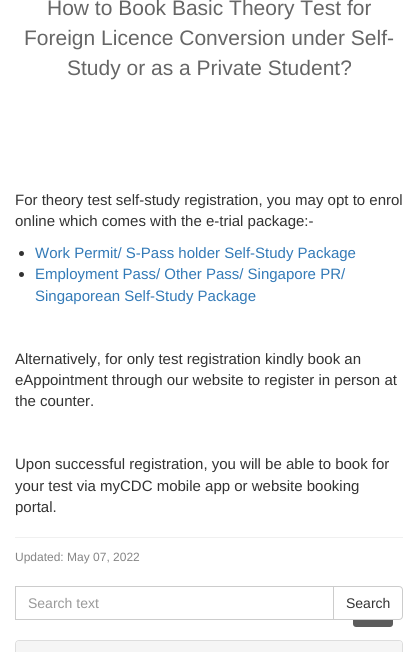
import math
import cairo

surface = cairo.ImageSurface(cairo.FORMAT_RGB24, 418, 652)
ctx = cairo.Context(surface)
options = cairo.FontOptions()
options.set_hint_metrics(cairo.HINT_METRICS_OFF)
options.set_hint_style(cairo.HINT_STYLE_NONE)
ctx.set_font_options(options)
ctx.set_miter_limit(4)


def set_color(code):
    ctx.set_source_rgb(*(v / 255 for v in bytes.fromhex(code[-6:])))


def draw_text(x, y, s, family, size, color, bold=False, italic=False):
    ctx.select_font_face(family, cairo.FONT_SLANT_ITALIC if italic else cairo.FONT_SLANT_NORMAL, cairo.FONT_WEIGHT_BOLD if bold else cairo.FONT_WEIGHT_NORMAL)
    ctx.set_font_size(size)
    set_color(color)
    ctx.move_to(x, y)
    ctx.show_text(s)


def fill_rect(x, y, w, h, color):
    set_color(color)
    ctx.rectangle(x, y, w, h)
    ctx.fill()


def rounded_rect(x, y, w, h, r):
    ctx.new_sub_path()
    for i, (u, v) in enumerate([(x + w - r, y + h - r), (x + r, y + h - r), (x + r, y + r), (x + w - r, y + r)]):
        ctx.arc(u, v, r, i * math.pi / 2, (i + 1) * math.pi / 2)
    ctx.close_path()


set_color("#ffffff")
ctx.paint()
draw_text(47, 15, "How to Book Basic Theory Test for", "Liberation Sans", 21, "#666666")
draw_text(24, 45, "Foreign Licence Conversion under Self-", "Liberation Sans", 21, "#666666")
draw_text(67, 75, "Study or as a Private Student?", "Liberation Sans", 21, "#666666")
draw_text(15, 205, "For theory test self-study registration, you may opt to enrol", "Liberation Sans", 15, "#333333")
draw_text(15, 226, "online which comes with the e-trial package:-", "Liberation Sans", 15, "#333333")
ctx.new_path()
ctx.arc(21.5, 253.5, 2.5, 0, 2 * math.pi)
ctx.fill()
draw_text(35, 258, "Work Permit/ S-Pass holder Self-Study Package", "Liberation Sans", 15, "#337ab7")
set_color("#333333")
ctx.new_path()
ctx.arc(21.5, 274.5, 2.5, 0, 2 * math.pi)
ctx.fill()
draw_text(35, 279, "Employment Pass/ Other Pass/ Singapore PR/", "Liberation Sans", 15, "#337ab7")
draw_text(35, 301, "Singaporean Self-Study Package", "Liberation Sans", 15, "#337ab7")
draw_text(15, 364, "Alternatively, for only test registration kindly book an", "Liberation Sans", 15, "#333333")
draw_text(15, 385, "eAppointment through our website to register in person at", "Liberation Sans", 15, "#333333")
draw_text(15, 406, "the counter.", "Liberation Sans", 15, "#333333")
draw_text(15, 469, "Upon successful registration, you will be able to book for", "Liberation Sans", 15, "#333333")
draw_text(15, 491, "your test via myCDC mobile app or website booking", "Liberation Sans", 15, "#333333")
draw_text(15, 512, "portal.", "Liberation Sans", 15, "#333333")
fill_rect(15, 537, 388, 1, "#f0f0f0")
draw_text(15, 561, "Updated: May 07, 2022", "Liberation Sans", 12, "#858585")
ctx.rectangle(15.5, 586.5, 318, 33)
set_color("#cccccc")
ctx.set_line_width(1)
ctx.stroke()
draw_text(28, 608, "Search text", "Liberation Sans", 14, "#999999")
set_color("#5c5c5c")
rounded_rect(353, 587, 40, 40, 3)
ctx.fill()
set_color("#ffffff")
ctx.new_path()
ctx.move_to(333.5, 586.5)
ctx.line_to(399, 586.5)
ctx.curve_to(401, 586.5, 402.5, 588, 402.5, 590)
ctx.line_to(402.5, 616)
ctx.curve_to(402.5, 618, 401, 619.5, 399, 619.5)
ctx.line_to(333.5, 619.5)
ctx.close_path()
ctx.fill_preserve()
set_color("#cccccc")
ctx.stroke()
draw_text(346, 608, "Search", "Liberation Sans", 14, "#333333")
rounded_rect(15.5, 640.5, 387, 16, 3.5)
set_color("#dddddd")
ctx.stroke()
set_color("#f5f5f5")
ctx.new_path()
ctx.move_to(19, 641)
ctx.line_to(399, 641)
ctx.curve_to(400.5, 641, 402, 642.5, 402, 644)
ctx.line_to(402, 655)
ctx.line_to(16, 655)
ctx.line_to(16, 644)
ctx.curve_to(16, 642.5, 17.5, 641, 19, 641)
ctx.close_path()
ctx.fill()
surface.write_to_png("output.png")
